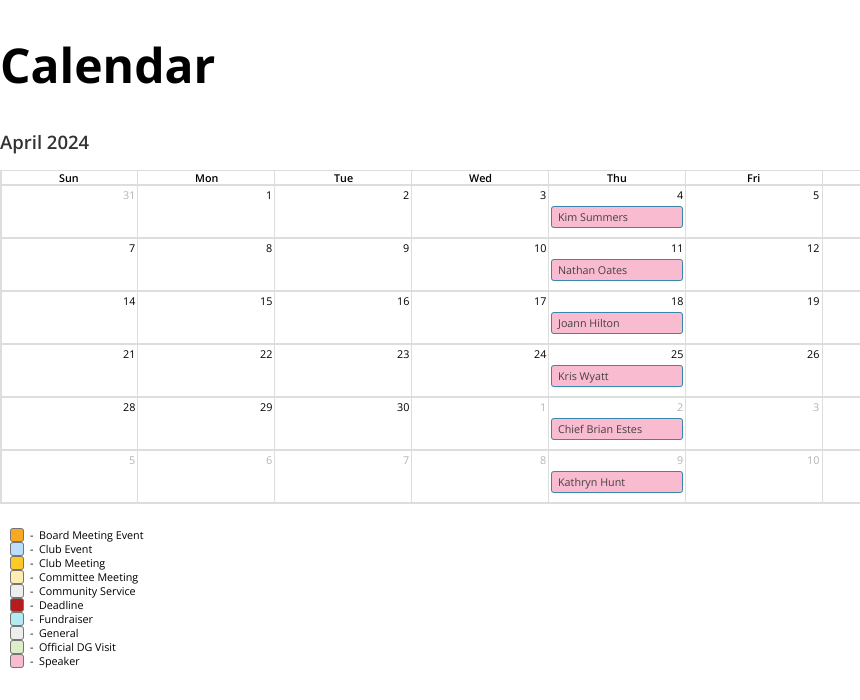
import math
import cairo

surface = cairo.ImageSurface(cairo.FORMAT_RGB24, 860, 700)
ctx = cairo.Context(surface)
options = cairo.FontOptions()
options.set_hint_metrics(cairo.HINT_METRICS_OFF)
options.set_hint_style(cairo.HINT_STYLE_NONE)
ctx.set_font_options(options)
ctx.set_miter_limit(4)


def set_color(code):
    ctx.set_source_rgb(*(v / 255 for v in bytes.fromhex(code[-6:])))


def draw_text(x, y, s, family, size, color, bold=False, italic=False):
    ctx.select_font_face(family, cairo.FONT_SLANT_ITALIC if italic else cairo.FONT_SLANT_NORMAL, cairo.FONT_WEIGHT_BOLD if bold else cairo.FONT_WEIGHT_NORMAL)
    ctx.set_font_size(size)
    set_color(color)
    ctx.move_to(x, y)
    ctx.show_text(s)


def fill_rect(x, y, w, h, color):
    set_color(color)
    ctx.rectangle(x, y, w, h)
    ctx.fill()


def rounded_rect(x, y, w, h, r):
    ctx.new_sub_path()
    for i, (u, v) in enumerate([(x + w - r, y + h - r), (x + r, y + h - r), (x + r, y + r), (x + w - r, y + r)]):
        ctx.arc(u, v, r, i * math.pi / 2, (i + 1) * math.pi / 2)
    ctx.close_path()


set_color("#ffffff")
ctx.paint()
draw_text(0, 83, "Calendar", "Open Sans", 48, "#000000", bold=True)
draw_text(0, 149, "April 2024", "Open Sans SemiBold", 18.5, "#333333")
fill_rect(0, 170, 860, 1, "#dddddd")
fill_rect(0, 185, 860, 1, "#dddddd")
fill_rect(0, 503, 860, 1, "#dddddd")
fill_rect(0, 185, 1, 319, "#dddddd")
fill_rect(0, 170, 1, 16, "#dddddd")
fill_rect(822, 184, 38, 1, "#dddddd")
fill_rect(822, 170, 1, 15, "#dddddd")
fill_rect(685, 184, 138, 1, "#dddddd")
fill_rect(685, 170, 1, 15, "#dddddd")
fill_rect(548, 184, 138, 1, "#dddddd")
fill_rect(548, 170, 1, 15, "#dddddd")
fill_rect(411, 184, 138, 1, "#dddddd")
fill_rect(411, 170, 1, 15, "#dddddd")
fill_rect(274, 184, 138, 1, "#dddddd")
fill_rect(274, 170, 1, 15, "#dddddd")
fill_rect(137, 184, 138, 1, "#dddddd")
fill_rect(137, 170, 1, 15, "#dddddd")
fill_rect(1, 184, 137, 1, "#dddddd")
fill_rect(1, 170, 1, 15, "#dddddd")
draw_text(59, 182, "Sun", "Open Sans SemiBold", 10.75, "#000000")
draw_text(195, 182, "Mon", "Open Sans SemiBold", 10.75, "#000000")
draw_text(334, 182, "Tue", "Open Sans SemiBold", 10.75, "#000000")
draw_text(469, 182, "Wed", "Open Sans SemiBold", 10.75, "#000000")
draw_text(607, 182, "Thu", "Open Sans SemiBold", 10.75, "#000000")
draw_text(747, 182, "Fri", "Open Sans SemiBold", 10.75, "#000000")
fill_rect(822, 237, 38, 2, "#dddddd")
fill_rect(822, 186, 1, 52, "#dddddd")
fill_rect(685, 237, 138, 1, "#dddddd")
fill_rect(685, 186, 1, 52, "#dddddd")
fill_rect(548, 237, 138, 1, "#dddddd")
fill_rect(548, 186, 1, 52, "#dddddd")
fill_rect(411, 237, 138, 1, "#dddddd")
fill_rect(411, 186, 1, 52, "#dddddd")
fill_rect(274, 237, 138, 1, "#dddddd")
fill_rect(274, 186, 1, 52, "#dddddd")
fill_rect(137, 237, 138, 1, "#dddddd")
fill_rect(137, 186, 1, 52, "#dddddd")
fill_rect(1, 237, 137, 1, "#dddddd")
fill_rect(1, 186, 1, 52, "#dddddd")
draw_text(123, 199, "31", "Open Sans", 10.75, "#b3b3b3")
draw_text(266, 199, "1", "Open Sans", 10.75, "#000000")
draw_text(403, 199, "2", "Open Sans", 10.75, "#000000")
draw_text(540, 199, "3", "Open Sans", 10.75, "#000000")
draw_text(677, 199, "4", "Open Sans", 10.75, "#000000")
draw_text(813, 199, "5", "Open Sans", 10.75, "#000000")
set_color("#f8bbd0")
rounded_rect(551.5, 206.5, 131, 21, 2.5)
ctx.fill_preserve()
set_color("#3a87ad")
ctx.set_line_width(1)
ctx.stroke()
draw_text(558, 221, "Kim Summers", "Open Sans", 10.75, "#45403c")
fill_rect(822, 290, 38, 2, "#dddddd")
fill_rect(822, 238, 1, 53, "#dddddd")
fill_rect(685, 238, 138, 1, "#dddddd")
fill_rect(685, 290, 138, 1, "#dddddd")
fill_rect(685, 238, 1, 53, "#dddddd")
fill_rect(548, 238, 138, 1, "#dddddd")
fill_rect(548, 290, 138, 1, "#dddddd")
fill_rect(548, 238, 1, 53, "#dddddd")
fill_rect(411, 238, 138, 1, "#dddddd")
fill_rect(411, 290, 138, 1, "#dddddd")
fill_rect(411, 238, 1, 53, "#dddddd")
fill_rect(274, 238, 138, 1, "#dddddd")
fill_rect(274, 290, 138, 1, "#dddddd")
fill_rect(274, 238, 1, 53, "#dddddd")
fill_rect(137, 238, 138, 1, "#dddddd")
fill_rect(137, 290, 138, 1, "#dddddd")
fill_rect(137, 238, 1, 53, "#dddddd")
fill_rect(1, 238, 137, 1, "#dddddd")
fill_rect(1, 290, 137, 1, "#dddddd")
fill_rect(1, 238, 1, 53, "#dddddd")
draw_text(129, 252, "7", "Open Sans", 10.75, "#000000")
draw_text(266, 252, "8", "Open Sans", 10.75, "#000000")
draw_text(403, 252, "9", "Open Sans", 10.75, "#000000")
draw_text(534, 252, "10", "Open Sans", 10.75, "#000000")
draw_text(671, 252, "11", "Open Sans", 10.75, "#000000")
draw_text(807, 252, "12", "Open Sans", 10.75, "#000000")
set_color("#f8bbd0")
rounded_rect(551.5, 259.5, 131, 21, 2.5)
ctx.fill_preserve()
set_color("#3a87ad")
ctx.stroke()
draw_text(558, 274, "Nathan Oates", "Open Sans", 10.75, "#45403c")
fill_rect(822, 343, 38, 2, "#dddddd")
fill_rect(822, 291, 1, 53, "#dddddd")
fill_rect(685, 291, 138, 1, "#dddddd")
fill_rect(685, 343, 138, 1, "#dddddd")
fill_rect(685, 291, 1, 53, "#dddddd")
fill_rect(548, 291, 138, 1, "#dddddd")
fill_rect(548, 343, 138, 1, "#dddddd")
fill_rect(548, 291, 1, 53, "#dddddd")
fill_rect(411, 291, 138, 1, "#dddddd")
fill_rect(411, 343, 138, 1, "#dddddd")
fill_rect(411, 291, 1, 53, "#dddddd")
fill_rect(274, 291, 138, 1, "#dddddd")
fill_rect(274, 343, 138, 1, "#dddddd")
fill_rect(274, 291, 1, 53, "#dddddd")
fill_rect(137, 291, 138, 1, "#dddddd")
fill_rect(137, 343, 138, 1, "#dddddd")
fill_rect(137, 291, 1, 53, "#dddddd")
fill_rect(1, 291, 137, 1, "#dddddd")
fill_rect(1, 343, 137, 1, "#dddddd")
fill_rect(1, 291, 1, 53, "#dddddd")
draw_text(123, 305, "14", "Open Sans", 10.75, "#000000")
draw_text(260, 305, "15", "Open Sans", 10.75, "#000000")
draw_text(397, 305, "16", "Open Sans", 10.75, "#000000")
draw_text(534, 305, "17", "Open Sans", 10.75, "#000000")
draw_text(671, 305, "18", "Open Sans", 10.75, "#000000")
draw_text(807, 305, "19", "Open Sans", 10.75, "#000000")
set_color("#f8bbd0")
rounded_rect(551.5, 312.5, 131, 21, 2.5)
ctx.fill_preserve()
set_color("#3a87ad")
ctx.stroke()
draw_text(558, 327, "Joann Hilton", "Open Sans", 10.75, "#45403c")
fill_rect(822, 396, 38, 2, "#dddddd")
fill_rect(822, 344, 1, 53, "#dddddd")
fill_rect(685, 344, 138, 1, "#dddddd")
fill_rect(685, 396, 138, 1, "#dddddd")
fill_rect(685, 344, 1, 53, "#dddddd")
fill_rect(548, 344, 138, 1, "#dddddd")
fill_rect(548, 396, 138, 1, "#dddddd")
fill_rect(548, 344, 1, 53, "#dddddd")
fill_rect(411, 344, 138, 1, "#dddddd")
fill_rect(411, 396, 138, 1, "#dddddd")
fill_rect(411, 344, 1, 53, "#dddddd")
fill_rect(274, 344, 138, 1, "#dddddd")
fill_rect(274, 396, 138, 1, "#dddddd")
fill_rect(274, 344, 1, 53, "#dddddd")
fill_rect(137, 344, 138, 1, "#dddddd")
fill_rect(137, 396, 138, 1, "#dddddd")
fill_rect(137, 344, 1, 53, "#dddddd")
fill_rect(1, 344, 137, 1, "#dddddd")
fill_rect(1, 396, 137, 1, "#dddddd")
fill_rect(1, 344, 1, 53, "#dddddd")
draw_text(123, 358, "21", "Open Sans", 10.75, "#000000")
draw_text(260, 358, "22", "Open Sans", 10.75, "#000000")
draw_text(397, 358, "23", "Open Sans", 10.75, "#000000")
draw_text(534, 358, "24", "Open Sans", 10.75, "#000000")
draw_text(671, 358, "25", "Open Sans", 10.75, "#000000")
draw_text(807, 358, "26", "Open Sans", 10.75, "#000000")
set_color("#f8bbd0")
rounded_rect(551.5, 365.5, 131, 21, 2.5)
ctx.fill_preserve()
set_color("#3a87ad")
ctx.stroke()
draw_text(558, 380, "Kris Wyatt", "Open Sans", 10.75, "#45403c")
fill_rect(822, 449, 38, 2, "#dddddd")
fill_rect(822, 397, 1, 53, "#dddddd")
fill_rect(685, 397, 138, 1, "#dddddd")
fill_rect(685, 449, 138, 1, "#dddddd")
fill_rect(685, 397, 1, 53, "#dddddd")
fill_rect(548, 397, 138, 1, "#dddddd")
fill_rect(548, 449, 138, 1, "#dddddd")
fill_rect(548, 397, 1, 53, "#dddddd")
fill_rect(411, 397, 138, 1, "#dddddd")
fill_rect(411, 449, 138, 1, "#dddddd")
fill_rect(411, 397, 1, 53, "#dddddd")
fill_rect(274, 397, 138, 1, "#dddddd")
fill_rect(274, 449, 138, 1, "#dddddd")
fill_rect(274, 397, 1, 53, "#dddddd")
fill_rect(137, 397, 138, 1, "#dddddd")
fill_rect(137, 449, 138, 1, "#dddddd")
fill_rect(137, 397, 1, 53, "#dddddd")
fill_rect(1, 397, 137, 1, "#dddddd")
fill_rect(1, 449, 137, 1, "#dddddd")
fill_rect(1, 397, 1, 53, "#dddddd")
draw_text(123, 411, "28", "Open Sans", 10.75, "#000000")
draw_text(260, 411, "29", "Open Sans", 10.75, "#000000")
draw_text(397, 411, "30", "Open Sans", 10.75, "#000000")
draw_text(540, 411, "1", "Open Sans", 10.75, "#b3b3b3")
draw_text(677, 411, "2", "Open Sans", 10.75, "#b3b3b3")
draw_text(813, 411, "3", "Open Sans", 10.75, "#b3b3b3")
set_color("#f8bbd0")
rounded_rect(551.5, 418.5, 131, 21, 2.5)
ctx.fill_preserve()
set_color("#3a87ad")
ctx.stroke()
draw_text(558, 433, "Chief Brian Estes", "Open Sans", 10.75, "#45403c")
fill_rect(822, 502, 38, 1, "#dddddd")
fill_rect(822, 450, 1, 53, "#dddddd")
fill_rect(685, 450, 138, 1, "#dddddd")
fill_rect(685, 502, 138, 1, "#dddddd")
fill_rect(685, 450, 1, 53, "#dddddd")
fill_rect(548, 450, 138, 1, "#dddddd")
fill_rect(548, 502, 138, 1, "#dddddd")
fill_rect(548, 450, 1, 53, "#dddddd")
fill_rect(411, 450, 138, 1, "#dddddd")
fill_rect(411, 502, 138, 1, "#dddddd")
fill_rect(411, 450, 1, 53, "#dddddd")
fill_rect(274, 450, 138, 1, "#dddddd")
fill_rect(274, 502, 138, 1, "#dddddd")
fill_rect(274, 450, 1, 53, "#dddddd")
fill_rect(137, 450, 138, 1, "#dddddd")
fill_rect(137, 502, 138, 1, "#dddddd")
fill_rect(137, 450, 1, 53, "#dddddd")
fill_rect(1, 450, 137, 1, "#dddddd")
fill_rect(1, 502, 137, 1, "#dddddd")
fill_rect(1, 450, 1, 53, "#dddddd")
draw_text(129, 464, "5", "Open Sans", 10.75, "#b3b3b3")
draw_text(266, 464, "6", "Open Sans", 10.75, "#b3b3b3")
draw_text(403, 464, "7", "Open Sans", 10.75, "#b3b3b3")
draw_text(540, 464, "8", "Open Sans", 10.75, "#b3b3b3")
draw_text(677, 464, "9", "Open Sans", 10.75, "#b3b3b3")
draw_text(807, 464, "10", "Open Sans", 10.75, "#b3b3b3")
set_color("#f8bbd0")
rounded_rect(551.5, 471.5, 131, 21, 2.5)
ctx.fill_preserve()
set_color("#3a87ad")
ctx.stroke()
draw_text(558, 486, "Kathryn Hunt", "Open Sans", 10.75, "#45403c")
set_color("#f9a825")
rounded_rect(10.5, 528.5, 13, 13, 2.5)
ctx.fill_preserve()
set_color("#757575")
ctx.stroke()
draw_text(30, 539, "-", "Open Sans", 10.75, "#000000")
draw_text(39, 539, "Board Meeting Event", "Open Sans", 10.75, "#000000")
set_color("#bbdefb")
rounded_rect(10.5, 542.5, 13, 13, 2.5)
ctx.fill_preserve()
set_color("#757575")
ctx.stroke()
draw_text(30, 553, "-", "Open Sans", 10.75, "#000000")
draw_text(39, 553, "Club Event", "Open Sans", 10.75, "#000000")
set_color("#ffca28")
rounded_rect(10.5, 556.5, 13, 13, 2.5)
ctx.fill_preserve()
set_color("#757575")
ctx.stroke()
draw_text(30, 567, "-", "Open Sans", 10.75, "#000000")
draw_text(39, 567, "Club Meeting", "Open Sans", 10.75, "#000000")
set_color("#ffecb3")
rounded_rect(10.5, 570.5, 13, 13, 2.5)
ctx.fill_preserve()
set_color("#757575")
ctx.stroke()
draw_text(30, 581, "-", "Open Sans", 10.75, "#000000")
draw_text(39, 581, "Committee Meeting", "Open Sans", 10.75, "#000000")
set_color("#eeeeee")
rounded_rect(10.5, 584.5, 13, 13, 2.5)
ctx.fill_preserve()
set_color("#757575")
ctx.stroke()
draw_text(30, 595, "-", "Open Sans", 10.75, "#000000")
draw_text(39, 595, "Community Service", "Open Sans", 10.75, "#000000")
set_color("#b71c1c")
rounded_rect(10.5, 598.5, 13, 13, 2.5)
ctx.fill_preserve()
set_color("#757575")
ctx.stroke()
draw_text(30, 609, "-", "Open Sans", 10.75, "#000000")
draw_text(39, 609, "Deadline", "Open Sans", 10.75, "#000000")
set_color("#b2ebf2")
rounded_rect(10.5, 612.5, 13, 13, 2.5)
ctx.fill_preserve()
set_color("#757575")
ctx.stroke()
draw_text(30, 623, "-", "Open Sans", 10.75, "#000000")
draw_text(39, 623, "Fundraiser", "Open Sans", 10.75, "#000000")
set_color("#eeeeee")
rounded_rect(10.5, 626.5, 13, 13, 2.5)
ctx.fill_preserve()
set_color("#757575")
ctx.stroke()
draw_text(30, 637, "-", "Open Sans", 10.75, "#000000")
draw_text(39, 637, "General", "Open Sans", 10.75, "#000000")
set_color("#dcedc8")
rounded_rect(10.5, 640.5, 13, 13, 2.5)
ctx.fill_preserve()
set_color("#757575")
ctx.stroke()
draw_text(30, 651, "-", "Open Sans", 10.75, "#000000")
draw_text(39, 651, "Official DG Visit", "Open Sans", 10.75, "#000000")
set_color("#f8bbd0")
rounded_rect(10.5, 654.5, 13, 13, 2.5)
ctx.fill_preserve()
set_color("#757575")
ctx.stroke()
draw_text(30, 665, "-", "Open Sans", 10.75, "#000000")
draw_text(39, 665, "Speaker", "Open Sans", 10.75, "#000000")
surface.write_to_png("output.png")
